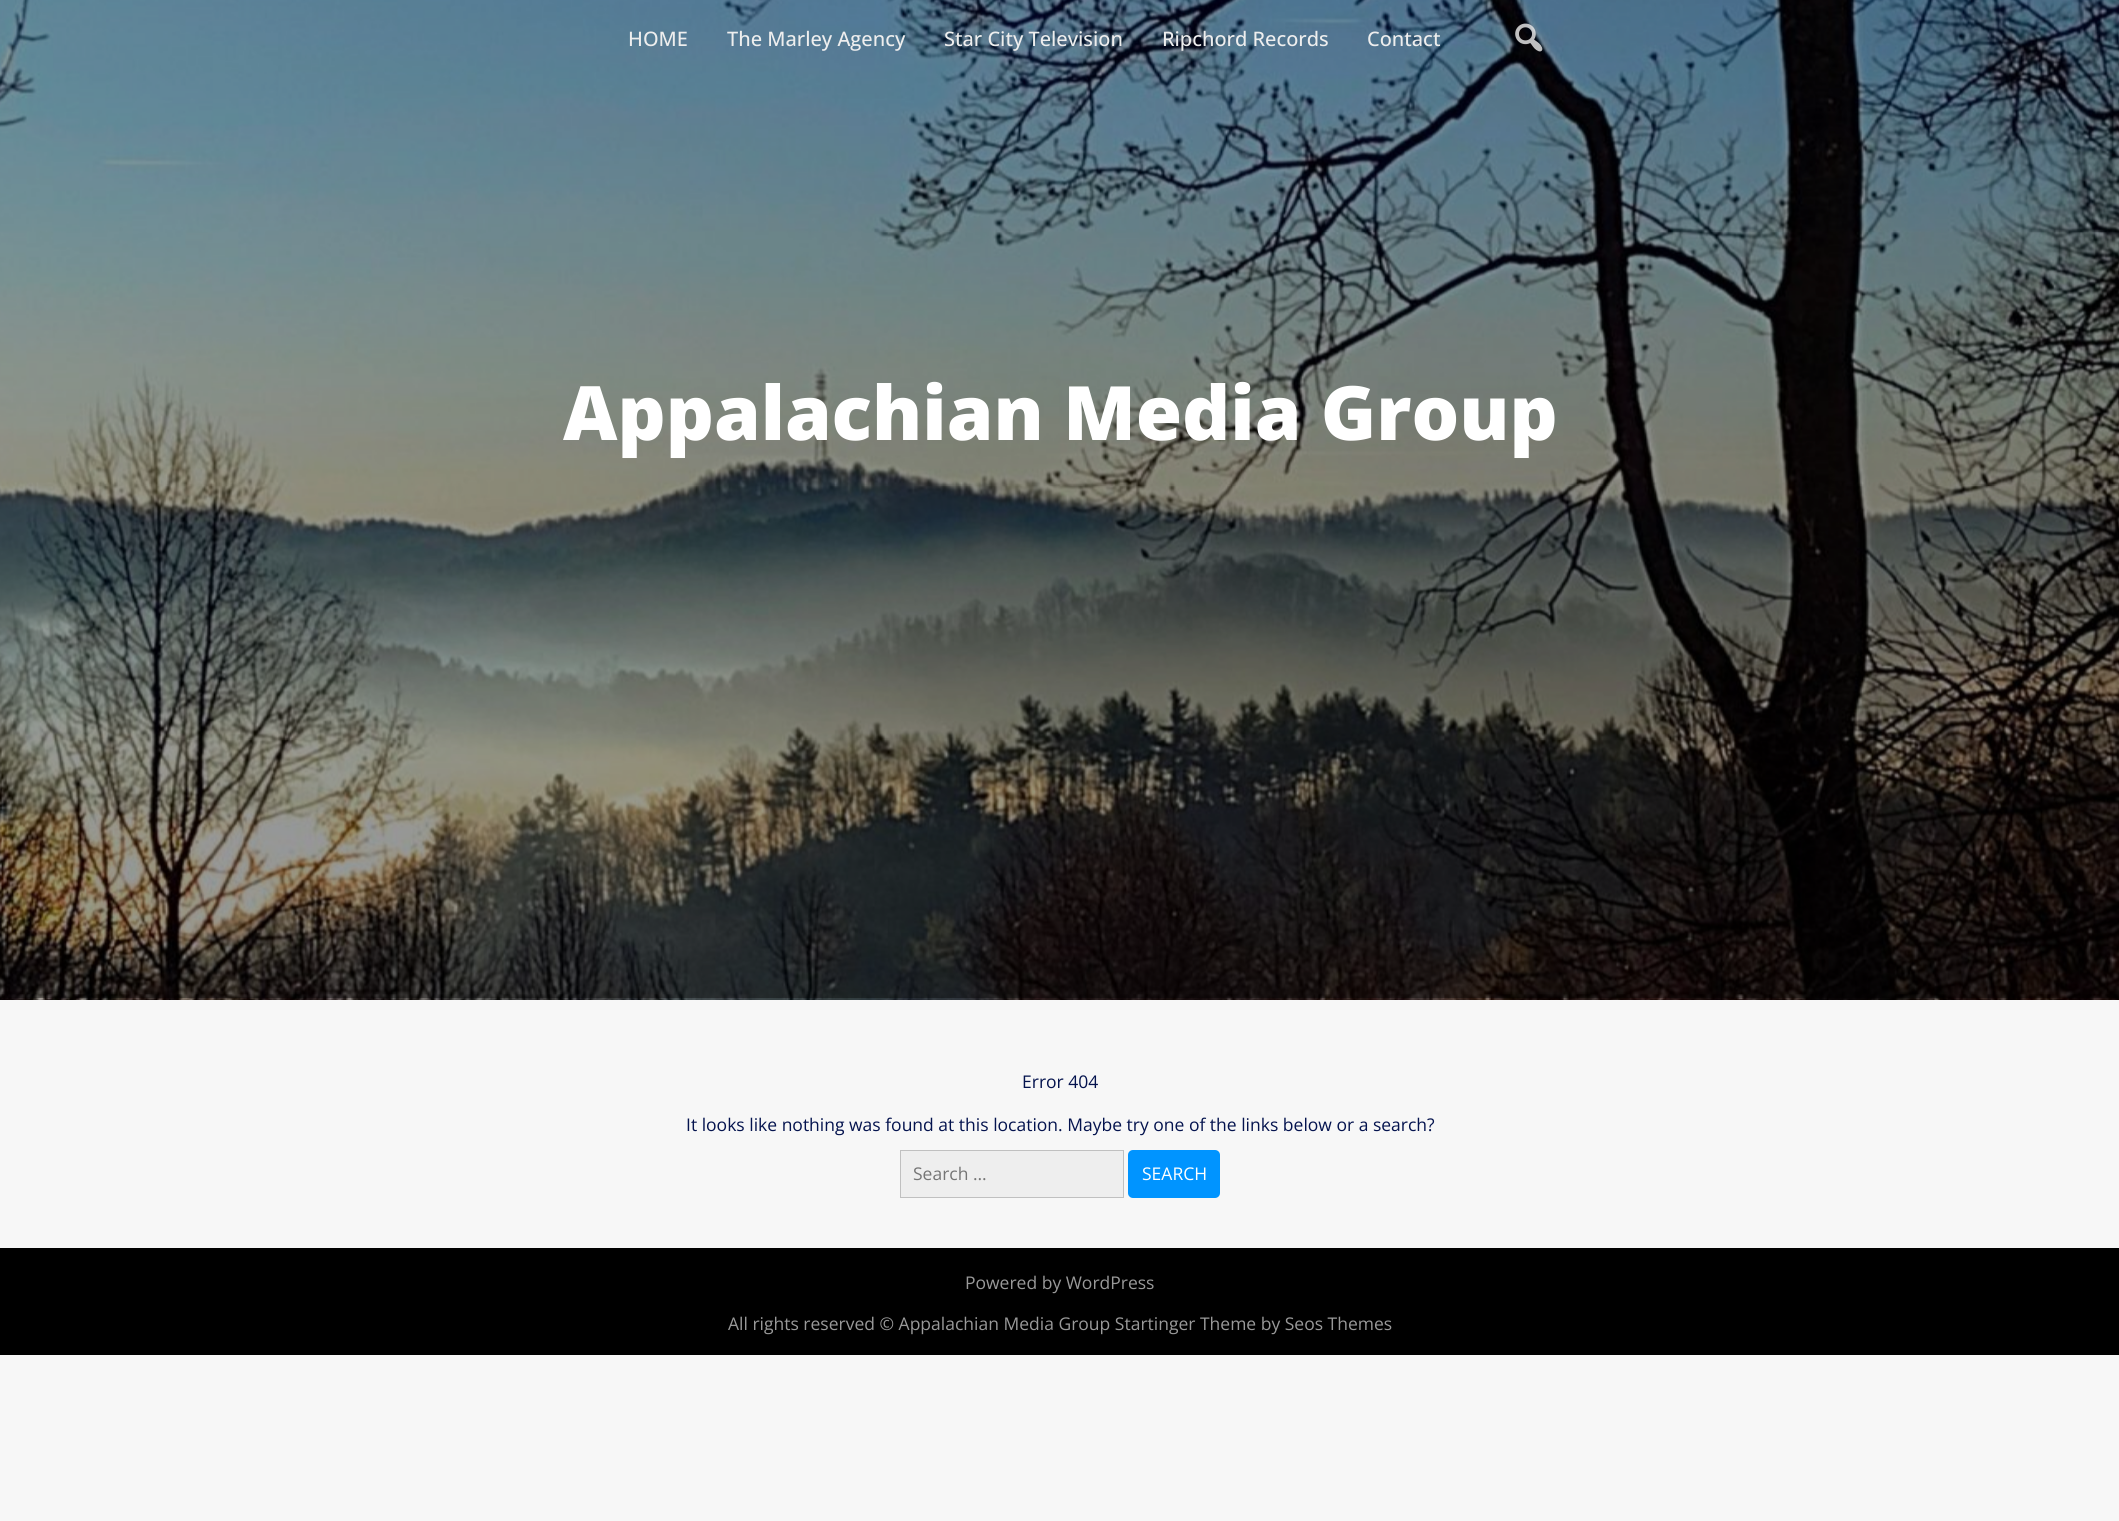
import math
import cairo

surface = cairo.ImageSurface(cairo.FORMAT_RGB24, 2119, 1521)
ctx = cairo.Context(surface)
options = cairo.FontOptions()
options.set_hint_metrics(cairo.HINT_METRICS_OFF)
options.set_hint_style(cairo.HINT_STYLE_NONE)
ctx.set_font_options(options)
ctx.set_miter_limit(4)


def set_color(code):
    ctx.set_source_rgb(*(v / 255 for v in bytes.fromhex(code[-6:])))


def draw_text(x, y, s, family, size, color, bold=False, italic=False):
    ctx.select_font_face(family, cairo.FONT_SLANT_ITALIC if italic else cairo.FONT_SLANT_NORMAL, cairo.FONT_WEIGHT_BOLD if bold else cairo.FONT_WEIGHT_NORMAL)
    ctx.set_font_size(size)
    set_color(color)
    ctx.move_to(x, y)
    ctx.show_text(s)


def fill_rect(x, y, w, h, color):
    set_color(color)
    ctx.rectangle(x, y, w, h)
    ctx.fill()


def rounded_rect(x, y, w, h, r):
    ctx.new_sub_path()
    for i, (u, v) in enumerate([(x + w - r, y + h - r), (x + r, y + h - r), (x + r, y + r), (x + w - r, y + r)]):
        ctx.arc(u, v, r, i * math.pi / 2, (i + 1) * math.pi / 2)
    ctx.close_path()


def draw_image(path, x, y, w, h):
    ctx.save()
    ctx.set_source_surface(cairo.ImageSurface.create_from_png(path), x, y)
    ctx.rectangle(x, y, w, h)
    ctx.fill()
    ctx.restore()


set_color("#f7f7f7")
ctx.paint()
draw_image("assets/img2.png", 0, 0, 2119, 1000)
draw_text(628, 46, "HOME", "Open Sans Medium", 20, "#eeeeee")
draw_text(727, 46, "The Marley Agency", "Open Sans Medium", 20, "#eeeeee")
draw_text(944, 46, "Star City Television", "Open Sans Medium", 20, "#eeeeee")
draw_text(1162, 46, "Ripchord Records", "Open Sans Medium", 20, "#eeeeee")
draw_text(1367, 46, "Contact", "Open Sans Medium", 20, "#eeeeee")
draw_image("assets/img1.png", 1515, 23, 28, 29)
draw_text(563, 440, "Appalachian Media Group", "Open Sans ExtraBold", 75, "#ffffff")
draw_text(1022, 1088, "Error 404", "Open Sans", 17.5, "#04134e")
draw_text(686, 1131, "It looks like nothing was found at this location. Maybe try one of the links below or a search?", "Open Sans", 17.5, "#04134e")
set_color("#eeeeee")
ctx.rectangle(900.5, 1150.5, 223, 47)
ctx.fill_preserve()
set_color("#c0c0c0")
ctx.set_line_width(1)
ctx.stroke()
draw_text(913, 1180, "Search …", "Open Sans", 17.5, "#757575")
set_color("#0094ff")
rounded_rect(1128, 1150, 92, 48, 5)
ctx.fill()
draw_text(1142, 1180, "SEARCH", "Open Sans", 17.5, "#ffffff")
fill_rect(0, 1248, 2119, 107, "#000000")
draw_text(965, 1289, "Powered by WordPress", "Open Sans", 17.5, "#999999")
draw_text(728, 1330, "All rights reserved © Appalachian Media Group Startinger Theme by Seos Themes", "Open Sans", 17.5, "#999999")
surface.write_to_png("output.png")
